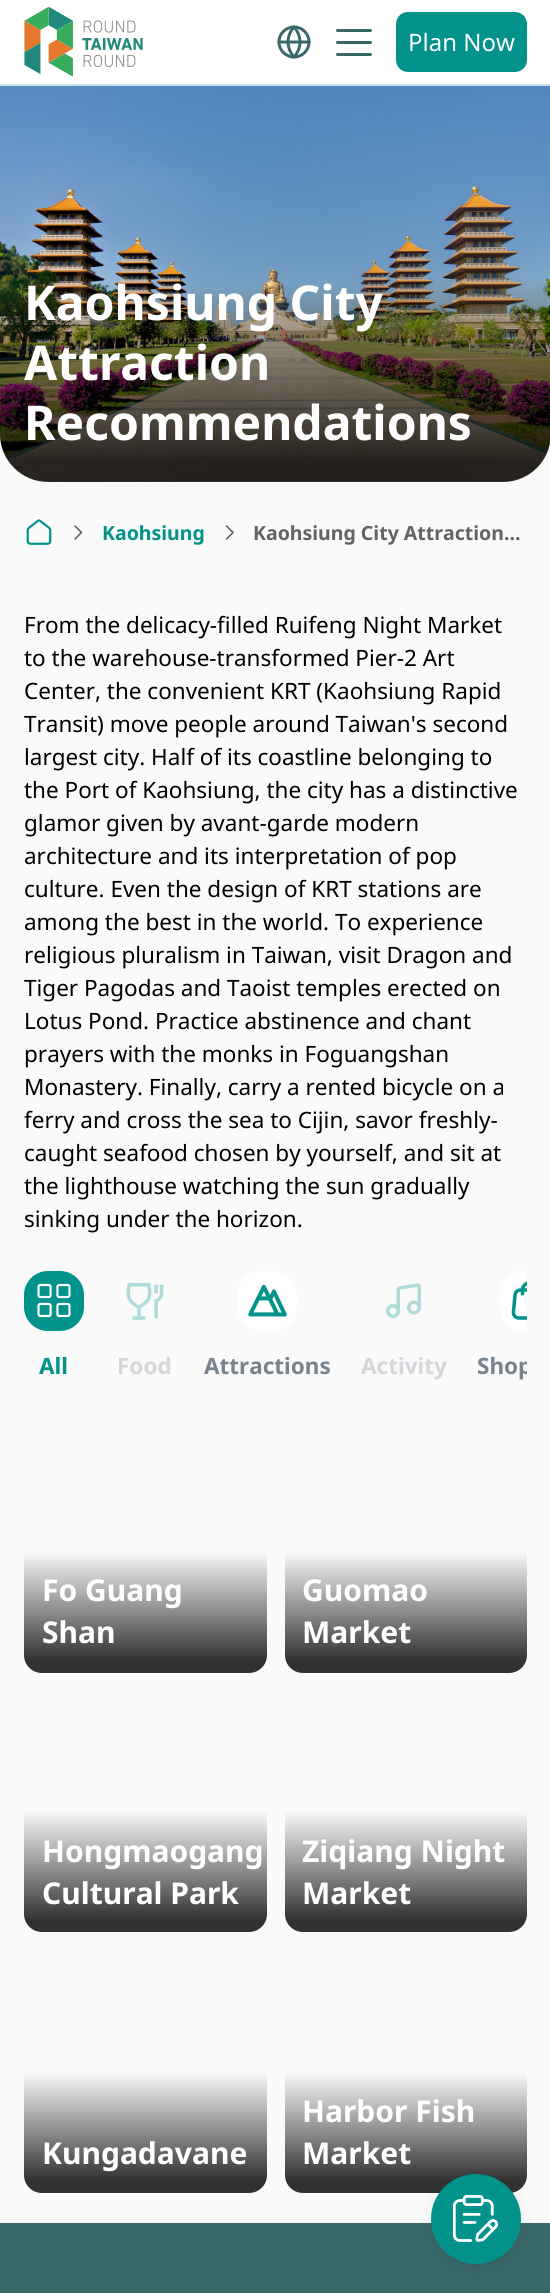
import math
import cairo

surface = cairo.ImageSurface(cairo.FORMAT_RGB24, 550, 2293)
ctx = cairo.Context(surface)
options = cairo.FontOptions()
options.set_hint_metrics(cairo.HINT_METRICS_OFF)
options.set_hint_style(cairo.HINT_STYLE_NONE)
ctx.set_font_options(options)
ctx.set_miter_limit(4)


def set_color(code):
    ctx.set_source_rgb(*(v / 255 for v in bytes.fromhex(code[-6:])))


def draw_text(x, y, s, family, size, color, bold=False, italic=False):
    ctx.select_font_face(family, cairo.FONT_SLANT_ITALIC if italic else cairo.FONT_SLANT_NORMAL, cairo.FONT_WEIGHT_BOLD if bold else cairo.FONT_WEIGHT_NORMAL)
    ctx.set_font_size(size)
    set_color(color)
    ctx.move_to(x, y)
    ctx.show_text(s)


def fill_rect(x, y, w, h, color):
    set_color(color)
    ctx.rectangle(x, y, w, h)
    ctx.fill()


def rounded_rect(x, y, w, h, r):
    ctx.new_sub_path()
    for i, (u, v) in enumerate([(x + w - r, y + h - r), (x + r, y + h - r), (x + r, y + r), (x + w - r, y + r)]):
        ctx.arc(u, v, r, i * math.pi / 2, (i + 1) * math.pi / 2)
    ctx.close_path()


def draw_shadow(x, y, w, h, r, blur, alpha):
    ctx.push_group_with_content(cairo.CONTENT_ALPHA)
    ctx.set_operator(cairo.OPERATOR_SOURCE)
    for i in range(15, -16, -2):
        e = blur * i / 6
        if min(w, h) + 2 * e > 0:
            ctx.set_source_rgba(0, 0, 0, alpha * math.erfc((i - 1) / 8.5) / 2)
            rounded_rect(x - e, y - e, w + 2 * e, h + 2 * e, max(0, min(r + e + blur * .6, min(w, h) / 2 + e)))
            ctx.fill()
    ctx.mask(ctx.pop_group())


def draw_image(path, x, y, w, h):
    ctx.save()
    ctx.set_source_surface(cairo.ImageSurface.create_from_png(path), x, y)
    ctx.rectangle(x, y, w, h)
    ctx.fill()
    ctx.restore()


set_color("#fafafa")
ctx.paint()
fill_rect(0, 0, 550, 84, "#ffffff")
fill_rect(0, 84, 550, 2, "#cde2e0")
draw_image("assets/img1.png", 24, 6, 119, 71)
draw_image("assets/img2.png", 277, 25, 34, 34)
set_color("#3a6868")
rounded_rect(336, 29, 36, 3, 1.5)
ctx.fill()
rounded_rect(336, 41, 36, 3, 1.5)
ctx.fill()
rounded_rect(336, 53, 36, 3, 1.5)
ctx.fill()
set_color("#00928b")
rounded_rect(396, 12, 131, 60, 12)
ctx.fill()
draw_text(408, 51, "Plan Now", "Noto Sans", 24, "#ffffff")
draw_image("assets/img3.png", 0, 86, 550, 396)
gradient = cairo.LinearGradient(275, 482, 275, 284)
gradient.add_color_stop_rgba(0.1, 0, 0, 0, 0.8)
gradient.add_color_stop_rgba(1, 0, 0, 0, 0)
ctx.set_source(gradient)
ctx.new_path()
ctx.move_to(0, 284)
ctx.line_to(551, 284)
ctx.line_to(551, 434)
ctx.curve_to(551, 460.5, 529.5, 482, 503, 482)
ctx.line_to(48, 482)
ctx.curve_to(21.5, 482, 0, 460.5, 0, 434)
ctx.close_path()
ctx.fill()
draw_text(24, 320, "Kaohsiung City", "Noto Sans", 48, "#ffffff", bold=True)
draw_text(24, 380, "Attraction", "Noto Sans", 48, "#ffffff", bold=True)
draw_text(24, 440, "Recommendations", "Noto Sans", 48, "#ffffff", bold=True)
draw_image("assets/img4.png", 26, 519, 26, 26)
ctx.new_path()
ctx.move_to(75, 526)
ctx.line_to(81.5, 532.5)
ctx.line_to(75, 539)
set_color("#636363")
ctx.set_line_width(1.6)
ctx.set_line_cap(cairo.LINE_CAP_ROUND)
ctx.set_line_join(cairo.LINE_JOIN_ROUND)
ctx.stroke()
draw_text(102, 540, "Kaohsiung", "Noto Sans", 19.5, "#00928b", bold=True)
ctx.new_path()
ctx.move_to(226.5, 526)
ctx.line_to(233, 532.5)
ctx.line_to(226.5, 539)
set_color("#636363")
ctx.stroke()
draw_text(253, 540, "Kaohsiung City Attraction…", "Noto Sans", 19.5, "#636363", bold=True)
draw_text(24, 633, "From the delicacy-filled Ruifeng Night Market", "Noto Sans", 22.5, "#000000")
draw_text(24, 666, "to the warehouse-transformed Pier-2 Art", "Noto Sans", 22.5, "#000000")
draw_text(24, 699, "Center, the convenient KRT (Kaohsiung Rapid", "Noto Sans", 22.5, "#000000")
draw_text(24, 732, "Transit) move people around Taiwan's second", "Noto Sans", 22.5, "#000000")
draw_text(24, 765, "largest city. Half of its coastline belonging to", "Noto Sans", 22.5, "#000000")
draw_text(24, 798, "the Port of Kaohsiung, the city has a distinctive", "Noto Sans", 22.5, "#000000")
draw_text(24, 831, "glamor given by avant-garde modern", "Noto Sans", 22.5, "#000000")
draw_text(24, 864, "architecture and its interpretation of pop", "Noto Sans", 22.5, "#000000")
draw_text(24, 897, "culture. Even the design of KRT stations are", "Noto Sans", 22.5, "#000000")
draw_text(24, 930, "among the best in the world. To experience", "Noto Sans", 22.5, "#000000")
draw_text(24, 963, "religious pluralism in Taiwan, visit Dragon and", "Noto Sans", 22.5, "#000000")
draw_text(24, 996, "Tiger Pagodas and Taoist temples erected on", "Noto Sans", 22.5, "#000000")
draw_text(24, 1029, "Lotus Pond. Practice abstinence and chant", "Noto Sans", 22.5, "#000000")
draw_text(24, 1062, "prayers with the monks in Foguangshan", "Noto Sans", 22.5, "#000000")
draw_text(24, 1095, "Monastery. Finally, carry a rented bicycle on a", "Noto Sans", 22.5, "#000000")
draw_text(24, 1128, "ferry and cross the sea to Cijin, savor freshly-", "Noto Sans", 22.5, "#000000")
draw_text(24, 1161, "caught seafood chosen by yourself, and sit at", "Noto Sans", 22.5, "#000000")
draw_text(24, 1194, "the lighthouse watching the sun gradually", "Noto Sans", 22.5, "#000000")
draw_text(24, 1227, "sinking under the horizon.", "Noto Sans", 22.5, "#000000")
set_color("#00928b")
rounded_rect(24, 1271, 60, 60, 24)
ctx.fill()
draw_image("assets/img5.png", 37, 1283, 34, 35)
draw_text(39, 1374, "All", "Noto Sans", 22.5, "#00928b", bold=True)
draw_image("assets/img6.png", 126, 1283, 38, 37)
draw_text(117, 1374, "Food", "Noto Sans", 22.5, "#d3d6da", bold=True)
set_color("#ffffff")
rounded_rect(237, 1271, 60, 60, 24)
ctx.fill()
draw_image("assets/img7.png", 248, 1284, 39, 33)
draw_text(204, 1374, "Attractions", "Noto Sans", 22.5, "#77838f", bold=True)
draw_image("assets/img8.png", 386, 1283, 35, 35)
draw_text(361, 1374, "Activity", "Noto Sans", 22.5, "#d3d6da", bold=True)
set_color("#ffffff")
ctx.new_path()
ctx.move_to(524, 1271)
ctx.line_to(527, 1271)
ctx.line_to(527, 1331)
ctx.line_to(524, 1331)
ctx.curve_to(510.5, 1331, 500, 1320.5, 500, 1307)
ctx.line_to(500, 1295)
ctx.curve_to(500, 1281.5, 510.5, 1271, 524, 1271)
ctx.close_path()
ctx.fill()
draw_image("assets/img9.png", 511, 1281, 16, 39)
ctx.save()
ctx.rectangle(24, 1271, 503, 111)
ctx.clip()
draw_text(477, 1374, "Shop", "Noto Sans", 22.5, "#77838f", bold=True)
ctx.restore()
gradient = cairo.LinearGradient(146, 1673, 146, 1551)
gradient.add_color_stop_rgba(0.1, 0.196, 0.196, 0.196, 1)
gradient.add_color_stop_rgba(1, 0.98, 0.98, 0.98, 1)
ctx.set_source(gradient)
ctx.new_path()
ctx.move_to(24, 1551)
ctx.line_to(267, 1551)
ctx.line_to(267, 1655)
ctx.curve_to(267, 1665, 259, 1673, 249, 1673)
ctx.line_to(42, 1673)
ctx.curve_to(32, 1673, 24, 1665, 24, 1655)
ctx.close_path()
ctx.fill()
draw_text(42, 1601, "Fo Guang", "Noto Sans", 30, "#ffffff", bold=True)
draw_text(42, 1643, "Shan", "Noto Sans", 30, "#ffffff", bold=True)
gradient = cairo.LinearGradient(406, 1673, 406, 1551)
gradient.add_color_stop_rgba(0.1, 0.196, 0.196, 0.196, 1)
gradient.add_color_stop_rgba(1, 0.98, 0.98, 0.98, 1)
ctx.set_source(gradient)
ctx.new_path()
ctx.move_to(285, 1551)
ctx.line_to(527, 1551)
ctx.line_to(527, 1655)
ctx.curve_to(527, 1665, 519, 1673, 509, 1673)
ctx.line_to(303, 1673)
ctx.curve_to(293, 1673, 285, 1665, 285, 1655)
ctx.close_path()
ctx.fill()
draw_text(302, 1601, "Guomao", "Noto Sans", 30, "#ffffff", bold=True)
draw_text(302, 1643, "Market", "Noto Sans", 30, "#ffffff", bold=True)
gradient = cairo.LinearGradient(146, 1932, 146, 1811)
gradient.add_color_stop_rgba(0.1, 0.196, 0.196, 0.196, 1)
gradient.add_color_stop_rgba(1, 0.98, 0.98, 0.98, 1)
ctx.set_source(gradient)
ctx.new_path()
ctx.move_to(24, 1811)
ctx.line_to(267, 1811)
ctx.line_to(267, 1914)
ctx.curve_to(267, 1924, 259, 1932, 249, 1932)
ctx.line_to(42, 1932)
ctx.curve_to(32, 1932, 24, 1924, 24, 1914)
ctx.close_path()
ctx.fill()
draw_text(42, 1862, "Hongmaogang", "Noto Sans", 30, "#ffffff", bold=True)
draw_text(42, 1904, "Cultural Park", "Noto Sans", 30, "#ffffff", bold=True)
gradient = cairo.LinearGradient(406, 1932, 406, 1811)
gradient.add_color_stop_rgba(0.1, 0.196, 0.196, 0.196, 1)
gradient.add_color_stop_rgba(1, 0.98, 0.98, 0.98, 1)
ctx.set_source(gradient)
ctx.new_path()
ctx.move_to(285, 1811)
ctx.line_to(527, 1811)
ctx.line_to(527, 1914)
ctx.curve_to(527, 1924, 519, 1932, 509, 1932)
ctx.line_to(303, 1932)
ctx.curve_to(293, 1932, 285, 1924, 285, 1914)
ctx.close_path()
ctx.fill()
draw_text(302, 1862, "Ziqiang Night", "Noto Sans", 30, "#ffffff", bold=True)
draw_text(302, 1904, "Market", "Noto Sans", 30, "#ffffff", bold=True)
gradient = cairo.LinearGradient(146, 2193, 146, 2072)
gradient.add_color_stop_rgba(0.1, 0.196, 0.196, 0.196, 1)
gradient.add_color_stop_rgba(1, 0.98, 0.98, 0.98, 1)
ctx.set_source(gradient)
ctx.new_path()
ctx.move_to(24, 2072)
ctx.line_to(267, 2072)
ctx.line_to(267, 2175)
ctx.curve_to(267, 2185, 259, 2193, 249, 2193)
ctx.line_to(42, 2193)
ctx.curve_to(32, 2193, 24, 2185, 24, 2175)
ctx.close_path()
ctx.fill()
draw_text(42, 2164, "Kungadavane", "Noto Sans", 30, "#ffffff", bold=True)
gradient = cairo.LinearGradient(406, 2193, 406, 2072)
gradient.add_color_stop_rgba(0.1, 0.196, 0.196, 0.196, 1)
gradient.add_color_stop_rgba(1, 0.98, 0.98, 0.98, 1)
ctx.set_source(gradient)
ctx.new_path()
ctx.move_to(285, 2072)
ctx.line_to(527, 2072)
ctx.line_to(527, 2175)
ctx.curve_to(527, 2185, 519, 2193, 509, 2193)
ctx.line_to(303, 2193)
ctx.curve_to(293, 2193, 285, 2185, 285, 2175)
ctx.close_path()
ctx.fill()
draw_text(302, 2122, "Harbor Fish", "Noto Sans", 30, "#ffffff", bold=True)
draw_text(302, 2164, "Market", "Noto Sans", 30, "#ffffff", bold=True)
fill_rect(0, 2223, 550, 70, "#3a6868")
set_color("#000000")
draw_shadow(431, 2180, 90, 90, 45, 8, 0.08)
set_color("#00928b")
ctx.arc(476, 2219, 45, 0, 2 * math.pi)
ctx.fill()
draw_image("assets/img10.png", 453, 2195, 45, 47)
surface.write_to_png("output.png")
